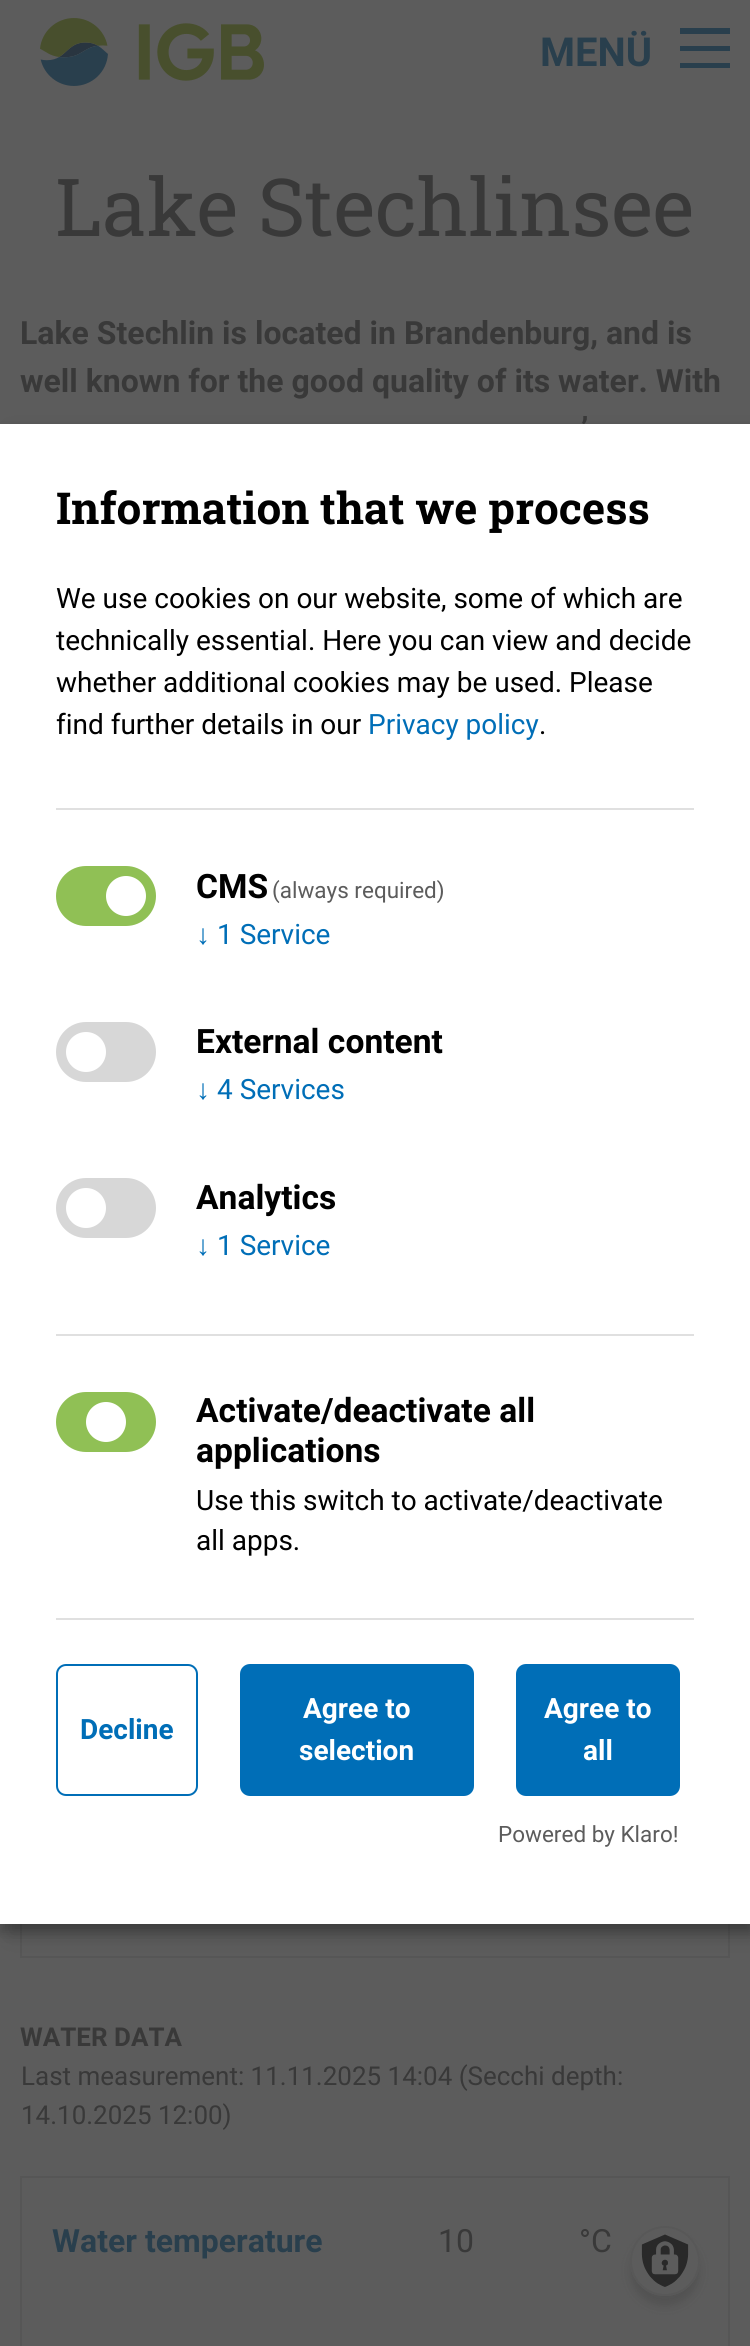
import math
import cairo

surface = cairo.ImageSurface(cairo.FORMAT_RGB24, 750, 2346)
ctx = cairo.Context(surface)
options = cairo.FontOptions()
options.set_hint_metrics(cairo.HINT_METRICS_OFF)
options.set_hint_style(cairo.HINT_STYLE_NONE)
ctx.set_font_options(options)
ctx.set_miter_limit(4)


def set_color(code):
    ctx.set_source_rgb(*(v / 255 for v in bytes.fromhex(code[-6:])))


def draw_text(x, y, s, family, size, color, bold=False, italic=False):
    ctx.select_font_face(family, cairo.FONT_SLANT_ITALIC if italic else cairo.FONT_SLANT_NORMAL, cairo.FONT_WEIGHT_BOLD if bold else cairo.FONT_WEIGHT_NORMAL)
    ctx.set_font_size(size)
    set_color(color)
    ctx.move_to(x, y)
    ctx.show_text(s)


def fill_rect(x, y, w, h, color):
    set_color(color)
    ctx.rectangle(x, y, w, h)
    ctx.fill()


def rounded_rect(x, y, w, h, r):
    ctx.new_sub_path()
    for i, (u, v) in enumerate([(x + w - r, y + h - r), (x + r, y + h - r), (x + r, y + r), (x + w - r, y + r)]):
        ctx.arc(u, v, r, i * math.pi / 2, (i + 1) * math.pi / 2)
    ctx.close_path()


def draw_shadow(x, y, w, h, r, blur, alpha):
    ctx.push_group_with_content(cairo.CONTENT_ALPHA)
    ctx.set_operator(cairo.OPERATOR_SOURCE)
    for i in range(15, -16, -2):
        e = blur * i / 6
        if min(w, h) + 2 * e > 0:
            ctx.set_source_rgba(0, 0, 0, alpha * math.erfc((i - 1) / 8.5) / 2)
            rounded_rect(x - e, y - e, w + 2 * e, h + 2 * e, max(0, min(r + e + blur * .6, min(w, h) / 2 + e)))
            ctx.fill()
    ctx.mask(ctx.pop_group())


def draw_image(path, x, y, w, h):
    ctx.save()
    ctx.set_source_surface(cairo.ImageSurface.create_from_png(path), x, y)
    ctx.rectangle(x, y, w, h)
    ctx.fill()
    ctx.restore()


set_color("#5c5c5c")
ctx.paint()
draw_image("assets/img1.png", 40, 18, 224, 68)
draw_text(540, 66, "MENÜ", "Roboto", 40, "#293f4d", bold=True)
ctx.new_path()
ctx.move_to(680, 68)
ctx.line_to(730, 68)
ctx.line_to(730, 63)
ctx.line_to(680, 63)
ctx.close_path()
ctx.move_to(680, 51)
ctx.line_to(730, 51)
ctx.line_to(730, 46)
ctx.line_to(680, 46)
ctx.close_path()
ctx.move_to(680, 28)
ctx.line_to(680, 34)
ctx.line_to(730, 34)
ctx.line_to(730, 28)
ctx.close_path()
ctx.fill()
draw_text(55, 236, "Lake Stechlinsee", "Roboto Slab", 80, "#393939")
draw_text(20, 344, "Lake Stechlin is located in Brandenburg, and is", "Roboto", 32, "#393939", bold=True)
draw_text(20, 392, "well known for the good quality of its water. With", "Roboto", 32, "#393939", bold=True)
draw_text(581, 440, "’", "Roboto", 32, "#393939", bold=True)
fill_rect(728, 1924, 2, 34, "#565656")
fill_rect(20, 1956, 710, 2, "#565656")
fill_rect(20, 1924, 2, 34, "#565656")
draw_text(20, 2046, "WATER DATA", "Roboto", 26, "#393939", bold=True)
draw_text(21, 2085, "Last measurement: 11.11.2025 14:04 (Secchi depth:", "Roboto", 26, "#393939")
draw_text(21, 2124, "14.10.2025 12:00)", "Roboto", 26, "#393939")
fill_rect(20, 2176, 710, 2, "#565656")
fill_rect(728, 2176, 2, 170, "#565656")
fill_rect(20, 2176, 2, 170, "#565656")
draw_text(52, 2252, "Water temperature", "Roboto", 32, "#293f4d", bold=True)
draw_text(438, 2252, "10", "Roboto", 32, "#393939")
draw_text(579, 2252, "°C", "Roboto", 32, "#393939")
set_color("#000000")
draw_shadow(10, 434, 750, 1500, 0, 10, 0.19)
draw_shadow(0, 432, 750, 1500, 0, 6, 0.2)
fill_rect(0, 424, 750, 1500, "#ffffff")
fill_rect(56, 808, 638, 2, "#e0e0e0")
draw_text(56, 524, "Information that we process", "Roboto Slab", 44, "#000000", bold=True)
draw_text(56, 608, "We use cookies on our website, some of which are", "Roboto", 28, "#000000")
draw_text(56, 650, "technically essential. Here you can view and decide", "Roboto", 28, "#000000")
draw_text(56, 692, "whether additional cookies may be used. Please", "Roboto", 28, "#000000")
draw_text(56, 734, "find further details in our", "Roboto", 28, "#000000")
draw_text(368, 734, "Privacy policy", "Roboto", 28, "#006eb7")
draw_text(539, 734, ".", "Roboto", 28, "#000000")
set_color("#90c055")
rounded_rect(56, 866, 100, 60, 30)
ctx.fill()
set_color("#ffffff")
ctx.arc(126, 896, 20, 0, 2 * math.pi)
ctx.fill()
draw_text(196, 898, "CMS", "Roboto", 33.6, "#000000", bold=True)
draw_text(272, 898, "(always required)", "Roboto", 22.5, "#5c5c5c")
draw_text(196, 944, "↓", "Liberation Sans", 28, "#006eb7")
draw_text(217, 944, "1 Service", "Roboto", 28, "#006eb7")
set_color("#d7d7d7")
rounded_rect(56, 1022, 100, 60, 30)
ctx.fill()
set_color("#ffffff")
ctx.arc(86, 1052, 20, 0, 2 * math.pi)
ctx.fill()
draw_text(196, 1053, "External content", "Roboto", 33.6, "#000000", bold=True)
draw_text(196, 1099, "↓", "Liberation Sans", 28, "#006eb7")
draw_text(217, 1099, "4 Services", "Roboto", 28, "#006eb7")
set_color("#d7d7d7")
rounded_rect(56, 1178, 100, 60, 30)
ctx.fill()
set_color("#ffffff")
ctx.arc(86, 1208, 20, 0, 2 * math.pi)
ctx.fill()
draw_text(196, 1209, "Analytics", "Roboto", 33.6, "#000000", bold=True)
draw_text(196, 1255, "↓", "Liberation Sans", 28, "#006eb7")
draw_text(217, 1255, "1 Service", "Roboto", 28, "#006eb7")
fill_rect(56, 1334, 638, 2, "#e0e0e0")
set_color("#90c055")
rounded_rect(56, 1392, 100, 60, 30)
ctx.fill()
set_color("#ffffff")
ctx.arc(106, 1422, 20, 0, 2 * math.pi)
ctx.fill()
draw_text(196, 1422, "Activate/deactivate all", "Roboto", 33.6, "#000000", bold=True)
draw_text(196, 1462, "applications", "Roboto", 33.6, "#000000", bold=True)
draw_text(196, 1510, "Use this switch to activate/deactivate", "Roboto", 28, "#000000")
draw_text(196, 1550, "all apps.", "Roboto", 28, "#000000")
fill_rect(56, 1618, 638, 2, "#e0e0e0")
rounded_rect(57, 1665, 140, 130, 9)
set_color("#006eb7")
ctx.stroke()
draw_text(80, 1739, "Decline", "Roboto", 28, "#006eb7", bold=True)
rounded_rect(241, 1665, 232, 130, 9)
ctx.fill_preserve()
ctx.stroke()
draw_text(303, 1718, "Agree to", "Roboto", 28, "#ffffff", bold=True)
draw_text(299, 1760, "selection", "Roboto", 28, "#ffffff", bold=True)
set_color("#006eb7")
rounded_rect(517, 1665, 162, 130, 9)
ctx.fill_preserve()
ctx.stroke()
draw_text(544, 1718, "Agree to", "Roboto", 28, "#ffffff", bold=True)
draw_text(583, 1760, "all", "Roboto", 28, "#ffffff", bold=True)
draw_text(498, 1842, "Powered by Klaro!", "Roboto", 22.5, "#5c5c5c")
set_color("#292929")
draw_shadow(630, 2236, 70, 70, 35, 5, 0.2)
set_color("#5c5c5c")
ctx.arc(665, 2261, 35, 0, 2 * math.pi)
ctx.fill()
draw_image("assets/img2.png", 641, 2234, 48, 53)
ctx.arc(665, 2261, 34, 0, 2 * math.pi)
set_color("#585858")
ctx.stroke()
surface.write_to_png("output.png")
